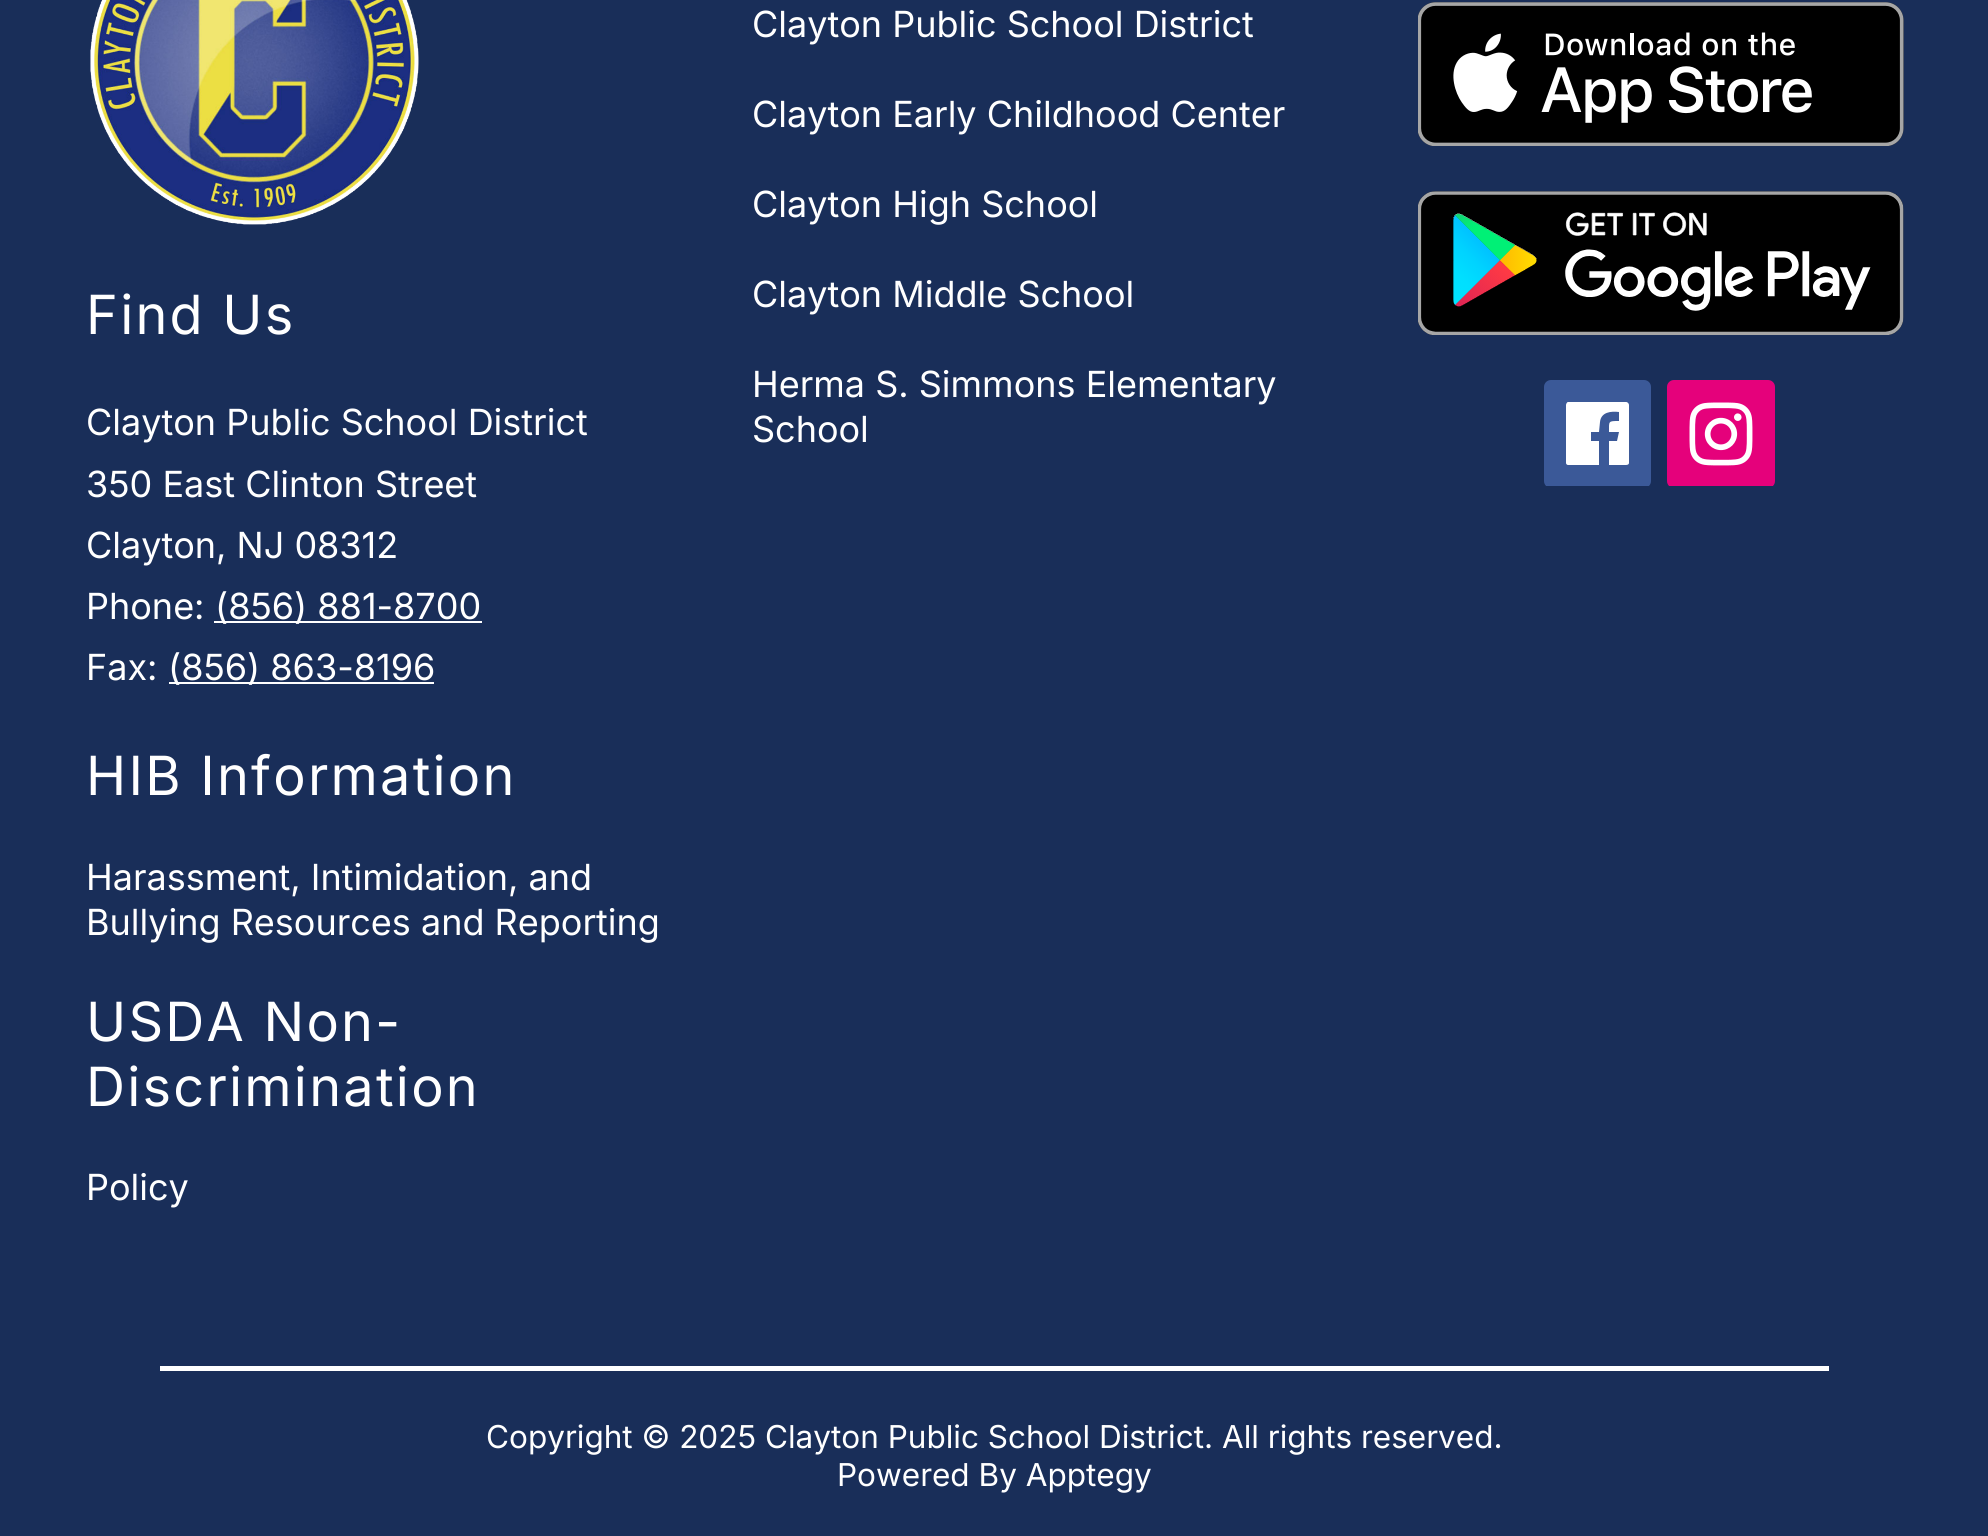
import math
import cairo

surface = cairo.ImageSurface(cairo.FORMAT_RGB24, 1988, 1536)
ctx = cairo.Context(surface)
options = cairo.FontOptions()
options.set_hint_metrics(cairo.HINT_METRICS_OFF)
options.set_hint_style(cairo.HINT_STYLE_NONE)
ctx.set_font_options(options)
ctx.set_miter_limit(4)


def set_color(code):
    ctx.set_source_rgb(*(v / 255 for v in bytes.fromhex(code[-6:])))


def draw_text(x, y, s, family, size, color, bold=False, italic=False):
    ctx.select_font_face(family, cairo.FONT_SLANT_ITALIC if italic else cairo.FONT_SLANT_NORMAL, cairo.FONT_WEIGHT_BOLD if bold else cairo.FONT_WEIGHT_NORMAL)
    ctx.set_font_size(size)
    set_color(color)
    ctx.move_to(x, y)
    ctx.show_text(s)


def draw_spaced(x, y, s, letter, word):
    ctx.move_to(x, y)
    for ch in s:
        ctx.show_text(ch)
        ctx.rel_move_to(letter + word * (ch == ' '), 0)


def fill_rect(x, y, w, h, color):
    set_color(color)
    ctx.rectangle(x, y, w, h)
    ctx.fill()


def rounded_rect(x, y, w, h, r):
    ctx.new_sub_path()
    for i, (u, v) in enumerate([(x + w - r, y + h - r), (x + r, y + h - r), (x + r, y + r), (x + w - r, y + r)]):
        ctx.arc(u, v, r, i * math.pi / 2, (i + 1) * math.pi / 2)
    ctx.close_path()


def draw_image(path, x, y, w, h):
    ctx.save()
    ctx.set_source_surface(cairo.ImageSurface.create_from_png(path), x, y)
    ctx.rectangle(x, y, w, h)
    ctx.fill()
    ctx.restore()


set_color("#192e59")
ctx.paint()
draw_text(752, 37, "Clayton Public School District", "Inter", 36, "#ffffff")
draw_text(752, 127, "Clayton Early Childhood Center", "Inter", 36, "#ffffff")
draw_text(752, 217, "Clayton High School", "Inter", 36, "#ffffff")
draw_text(752, 307, "Clayton Middle School", "Inter", 36, "#ffffff")
draw_text(752, 397, "Herma S. Simmons Elementary", "Inter", 36, "#ffffff")
draw_text(752, 442, "School", "Inter", 36, "#ffffff")
draw_image("assets/img1.png", 1418, 2, 486, 144)
draw_image("assets/img2.png", 1418, 191, 486, 144)
ctx.save()
ctx.rectangle(1544, 380, 108, 106)
ctx.clip()
set_color("#3b5998")
rounded_rect(1544, 380, 107, 108, 7)
ctx.fill()
ctx.restore()
ctx.new_path()
ctx.move_to(1626, 402)
ctx.line_to(1568, 402)
ctx.curve_to(1567, 402, 1566, 404, 1566, 405)
ctx.line_to(1566, 463)
ctx.curve_to(1566, 464, 1567, 465, 1568, 465)
ctx.line_to(1626, 465)
ctx.curve_to(1628, 465, 1629, 464, 1629, 463)
ctx.line_to(1629, 405)
ctx.curve_to(1629, 404, 1628, 402, 1626, 402)
ctx.close_path()
ctx.move_to(1619, 421)
ctx.curve_to(1608, 421, 1609, 421, 1609, 432)
ctx.line_to(1619, 432)
ctx.line_to(1617, 441)
ctx.line_to(1609, 441)
ctx.line_to(1609, 465)
ctx.line_to(1599, 465)
ctx.line_to(1599, 441)
ctx.line_to(1591, 441)
ctx.line_to(1591, 432)
ctx.line_to(1599, 432)
ctx.line_to(1600, 422)
ctx.curve_to(1601, 412, 1611, 411, 1619, 412)
ctx.close_path()
ctx.fill()
draw_image("assets/img3.png", 1667, 380, 108, 106)
draw_image("assets/img4.png", 90, 0, 329, 225)
ctx.set_font_size(54)
draw_spaced(86, 334, "Find Us", 2.25, 0)
draw_text(86, 435, "Clayton Public School District", "Inter", 36, "#ffffff")
draw_text(86, 497, "350 East Clinton Street", "Inter", 36, "#ffffff")
draw_text(86, 558, "Clayton, NJ 08312", "Inter", 36, "#ffffff")
draw_text(86, 619, "Phone:", "Inter", 36, "#ffffff")
fill_rect(214, 621, 268, 2, "#ffffff")
draw_text(215, 619, "(856) 881-8700", "Inter", 36, "#ffffff")
draw_text(86, 680, "Fax:", "Inter", 36, "#ffffff")
fill_rect(169, 682, 265, 2, "#ffffff")
draw_text(168, 680, "(856) 863-8196", "Inter", 36, "#ffffff")
ctx.set_font_size(54)
draw_spaced(86, 795, "HIB Information", 2.25, 0)
draw_text(86, 890, "Harassment, Intimidation, and", "Inter", 36, "#ffffff")
draw_text(86, 935, "Bullying Resources and Reporting", "Inter", 36, "#ffffff")
ctx.set_font_size(54)
draw_spaced(86, 1041, "USDA Non-", 2.25, 0)
draw_spaced(86, 1106, "Discrimination", 2.25, 0)
draw_text(86, 1200, "Policy", "Inter", 36, "#ffffff")
fill_rect(160, 1366, 1669, 5, "#ffffff")
draw_text(486, 1448, "Copyright © 2025 Clayton Public School District. All rights reserved.", "Inter", 31.5, "#ffffff")
draw_text(837, 1486, "Powered By Apptegy", "Inter", 31.5, "#ffffff")
surface.write_to_png("output.png")
